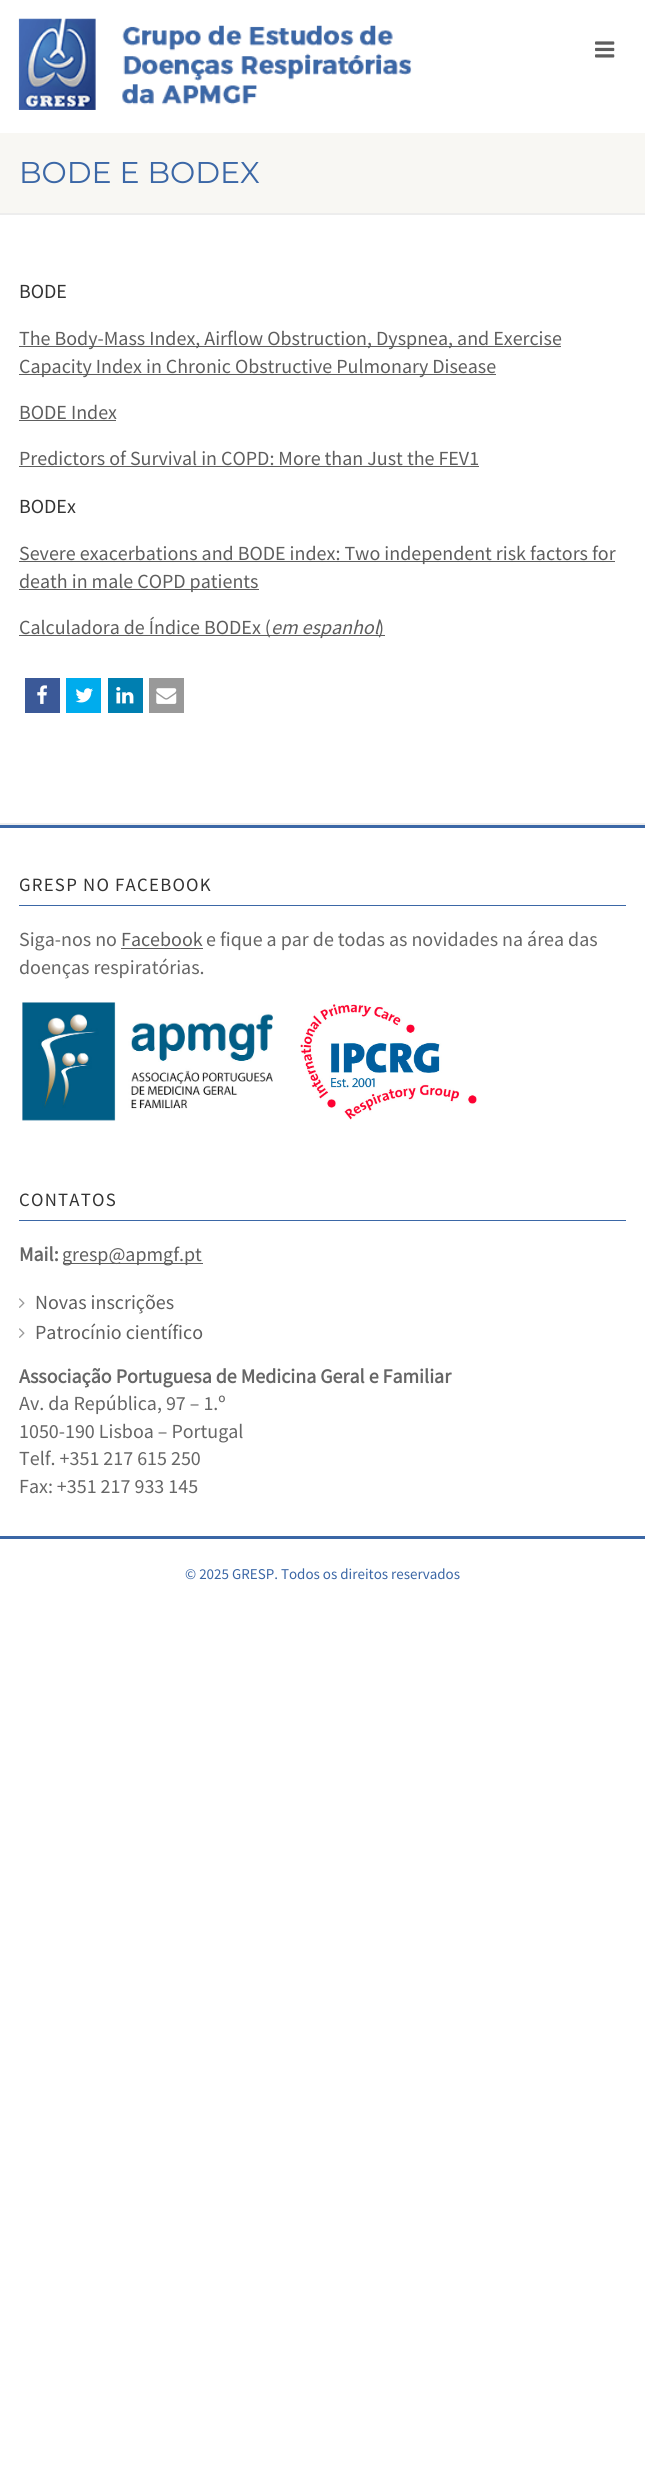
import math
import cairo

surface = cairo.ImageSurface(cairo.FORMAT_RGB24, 645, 2491)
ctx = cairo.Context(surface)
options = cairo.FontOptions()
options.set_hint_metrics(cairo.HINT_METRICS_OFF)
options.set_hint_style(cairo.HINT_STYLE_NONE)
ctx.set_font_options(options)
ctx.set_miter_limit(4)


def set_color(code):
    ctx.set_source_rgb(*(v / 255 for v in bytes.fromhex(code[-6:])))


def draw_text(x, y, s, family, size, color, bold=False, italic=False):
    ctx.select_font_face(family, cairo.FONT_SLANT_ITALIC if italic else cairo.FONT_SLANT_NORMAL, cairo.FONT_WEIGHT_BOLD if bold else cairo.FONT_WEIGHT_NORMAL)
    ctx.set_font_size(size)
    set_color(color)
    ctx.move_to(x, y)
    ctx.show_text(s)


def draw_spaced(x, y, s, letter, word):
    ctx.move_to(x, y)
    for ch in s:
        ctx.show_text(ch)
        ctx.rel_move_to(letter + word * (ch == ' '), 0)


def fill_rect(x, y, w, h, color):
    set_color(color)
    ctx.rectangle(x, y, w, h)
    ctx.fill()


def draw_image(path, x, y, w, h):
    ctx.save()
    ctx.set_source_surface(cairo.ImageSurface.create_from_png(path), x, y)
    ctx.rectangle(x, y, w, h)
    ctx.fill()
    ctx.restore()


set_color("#ffffff")
ctx.paint()
draw_image("assets/img1.png", 18, 18, 394, 92)
draw_image("assets/img2.png", 595, 41, 20, 17)
fill_rect(0, 213, 645, 2, "#ededed")
fill_rect(0, 133, 645, 80, "#f8f7f3")
draw_text(19, 183, "BODE E BODEX", "Montserrat Thin", 30, "#3b67a6")
draw_text(19, 298, "BODE", "Source Sans Pro", 20, "#333333")
fill_rect(19, 346, 542, 1, "#5e5e5e")
draw_text(19, 345, "The Body-Mass Index, Airflow Obstruction, Dyspnea, and Exercise", "Source Sans Pro", 20, "#5e5e5e")
fill_rect(19, 374, 477, 1, "#5e5e5e")
draw_text(19, 373, "Capacity Index in Chronic Obstructive Pulmonary Disease", "Source Sans Pro", 20, "#5e5e5e")
draw_text(19, 419, "BODE Index", "Source Sans Pro", 20, "#5e5e5e")
fill_rect(19, 420, 97, 1, "#5e5e5e")
draw_text(19, 465, "Predictors of Survival in COPD: More than Just the FEV1", "Source Sans Pro", 20, "#5e5e5e")
fill_rect(19, 466, 460, 1, "#5e5e5e")
draw_text(19, 513, "BODEx", "Source Sans Pro", 20, "#333333")
fill_rect(19, 561, 596, 1, "#5e5e5e")
draw_text(19, 560, "Severe exacerbations and BODE index: Two independent risk factors for", "Source Sans Pro", 20, "#5e5e5e")
fill_rect(19, 589, 240, 1, "#5e5e5e")
draw_text(19, 588, "death in male COPD patients", "Source Sans Pro", 20, "#5e5e5e")
fill_rect(19, 635, 360, 1, "#5e5e5e")
draw_text(19, 634, "Calculadora de Índice BODEx (", "Source Sans Pro", 20, "#5e5e5e")
draw_text(271, 634, "em espanhol", "Source Sans Pro", 20, "#5e5e5e", italic=True)
fill_rect(379, 635, 6, 1, "#5e5e5e")
draw_text(378, 634, ")", "Source Sans Pro", 20, "#5e5e5e")
fill_rect(25, 678, 35, 35, "#3b5998")
draw_image("assets/img3.png", 37, 685, 10, 19)
fill_rect(66, 678, 35, 35, "#00aced")
draw_image("assets/img4.png", 75, 688, 18, 15)
fill_rect(108, 678, 35, 35, "#007fb1")
draw_image("assets/img5.png", 116, 687, 18, 17)
fill_rect(149, 678, 35, 35, "#999999")
draw_image("assets/img6.png", 156, 688, 21, 16)
fill_rect(0, 823, 645, 2, "#ededed")
fill_rect(0, 825, 645, 3, "#3b67a6")
fill_rect(19, 905, 607, 1, "#3b67a6")
ctx.set_font_size(18.75)
set_color("#333333")
draw_spaced(19, 891, "GRESP NO FACEBOOK", 1.25, 0)
draw_text(19, 946, "Siga-nos no", "Source Sans Pro", 20, "#666666")
draw_text(121, 946, "Facebook", "Source Sans Pro", 20, "#5e5e5e")
fill_rect(121, 948, 82, 1, "#5e5e5e")
draw_text(206, 946, "e fique a par de todas as novidades na área das", "Source Sans Pro", 20, "#666666")
draw_text(19, 974, "doenças respiratórias.", "Source Sans Pro", 20, "#666666")
draw_image("assets/img7.png", 22, 1002, 251, 119)
draw_image("assets/img8.png", 300, 1004, 177, 116)
fill_rect(19, 1220, 607, 1, "#3b67a6")
ctx.set_font_size(18.75)
set_color("#333333")
draw_spaced(19, 1206, "CONTATOS", 1.25, 0)
draw_text(19, 1261, "Mail:", "Source Sans Pro", 20, "#666666", bold=True)
fill_rect(63, 1263, 140, 1, "#5e5e5e")
draw_text(62, 1261, "gresp@apmgf.pt", "Source Sans Pro", 20, "#5e5e5e")
draw_image("assets/img9.png", 19, 1298, 6, 10)
draw_text(35, 1309, "Novas inscrições", "Source Sans Pro", 20, "#5e5e5e")
draw_image("assets/img9.png", 19, 1328, 6, 10)
draw_text(35, 1339, "Patrocínio científico", "Source Sans Pro", 20, "#5e5e5e")
draw_text(19, 1383, "Associação Portuguesa de Medicina Geral e Familiar", "Source Sans Pro", 20, "#666666", bold=True)
draw_text(19, 1410, "Av. da República, 97 – 1.º", "Source Sans Pro", 20, "#666666")
draw_text(19, 1438, "1050-190 Lisboa – Portugal", "Source Sans Pro", 20, "#666666")
draw_text(19, 1465, "Telf. +351 217 615 250", "Source Sans Pro", 20, "#666666")
draw_text(19, 1493, "Fax: +351 217 933 145", "Source Sans Pro", 20, "#666666")
fill_rect(0, 1536, 645, 3, "#3b67a6")
draw_text(185, 1579, "© 2025 GRESP. Todos os direitos reservados", "Source Sans Pro", 15, "#3b67a6")
surface.write_to_png("output.png")
